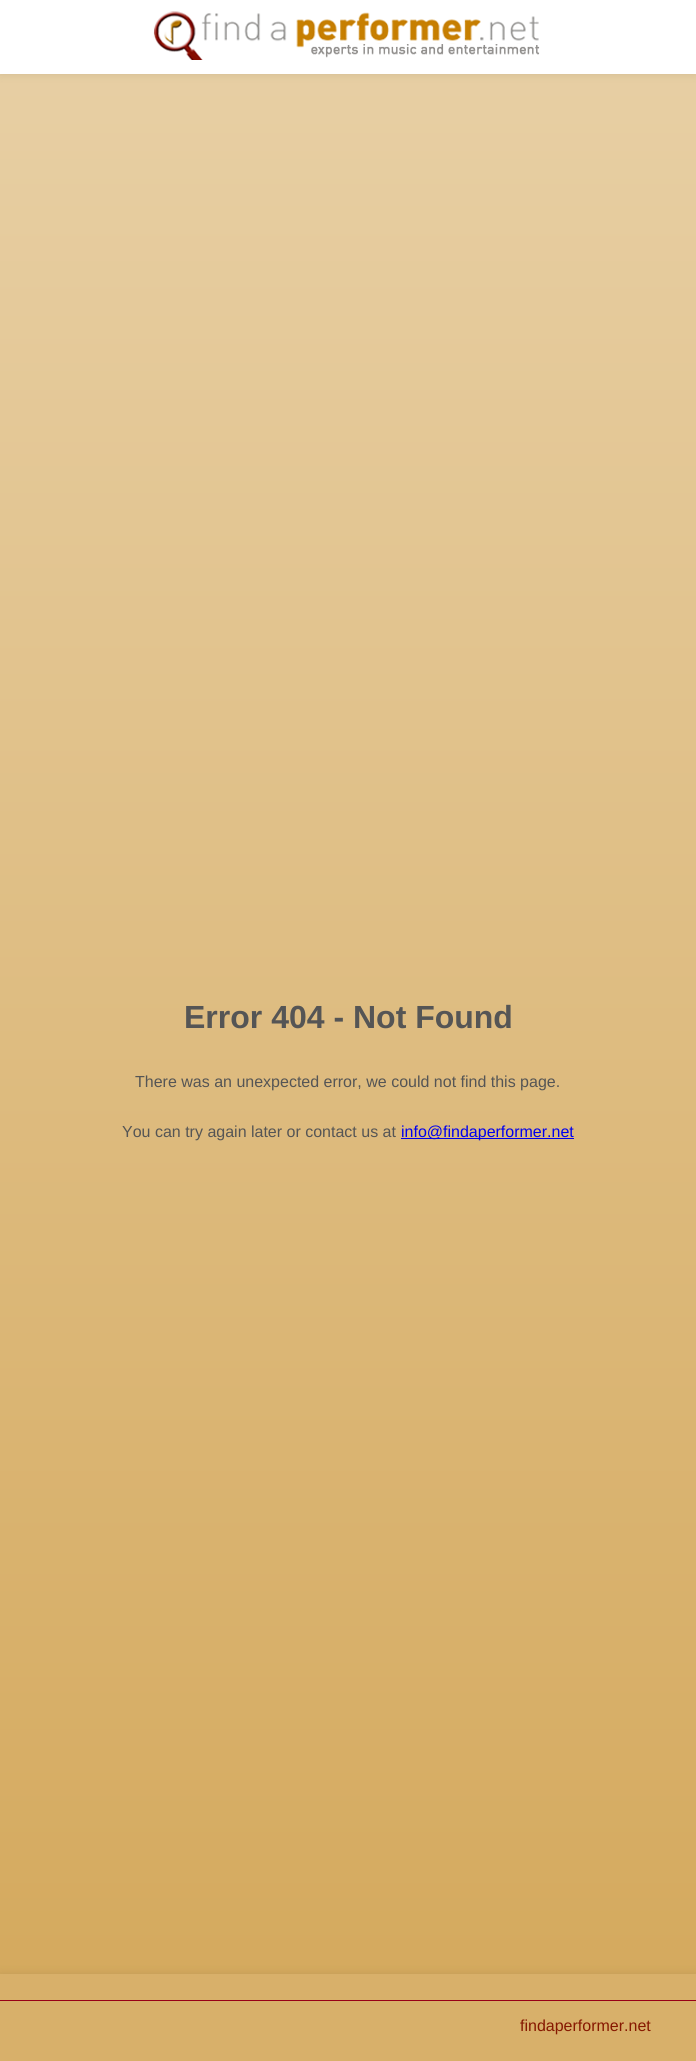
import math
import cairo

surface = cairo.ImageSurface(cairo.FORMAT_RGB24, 696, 2061)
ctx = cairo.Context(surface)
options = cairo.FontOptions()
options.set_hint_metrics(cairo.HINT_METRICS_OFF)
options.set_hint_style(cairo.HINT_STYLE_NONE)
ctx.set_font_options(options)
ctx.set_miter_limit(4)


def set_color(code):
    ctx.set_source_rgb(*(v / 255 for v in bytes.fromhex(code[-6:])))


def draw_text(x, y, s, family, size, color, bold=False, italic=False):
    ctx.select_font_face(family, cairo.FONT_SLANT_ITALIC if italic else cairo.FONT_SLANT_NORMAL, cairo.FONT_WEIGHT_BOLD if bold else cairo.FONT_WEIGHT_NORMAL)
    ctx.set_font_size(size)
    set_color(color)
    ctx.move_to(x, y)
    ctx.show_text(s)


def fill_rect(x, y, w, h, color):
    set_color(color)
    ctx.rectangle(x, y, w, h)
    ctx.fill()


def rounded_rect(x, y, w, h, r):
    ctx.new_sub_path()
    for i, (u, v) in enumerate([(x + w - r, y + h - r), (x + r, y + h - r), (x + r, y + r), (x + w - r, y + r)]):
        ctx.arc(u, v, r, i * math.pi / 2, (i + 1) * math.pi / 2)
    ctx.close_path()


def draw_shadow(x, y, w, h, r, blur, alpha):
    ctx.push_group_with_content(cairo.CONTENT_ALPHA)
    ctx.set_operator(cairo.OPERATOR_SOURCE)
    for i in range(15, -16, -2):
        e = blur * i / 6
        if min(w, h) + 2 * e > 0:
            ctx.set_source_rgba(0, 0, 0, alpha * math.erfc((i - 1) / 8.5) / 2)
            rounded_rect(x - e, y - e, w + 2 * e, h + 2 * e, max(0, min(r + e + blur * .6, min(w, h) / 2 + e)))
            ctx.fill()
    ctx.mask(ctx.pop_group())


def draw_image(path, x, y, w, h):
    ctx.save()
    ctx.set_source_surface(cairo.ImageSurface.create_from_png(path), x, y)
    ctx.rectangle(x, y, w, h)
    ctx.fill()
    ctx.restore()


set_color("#ffffff")
ctx.paint()
gradient = cairo.LinearGradient(348, 0, 348, 2061)
gradient.add_color_stop_rgba(0, 0.91, 0.816, 0.651, 1)
gradient.add_color_stop_rgba(1, 0.831, 0.659, 0.357, 1)
ctx.set_source(gradient)
ctx.rectangle(0, 74, 696, 1900)
ctx.fill()
set_color("#000000")
draw_shadow(0, 0, 696, 74, 0, 5, 0.1)
fill_rect(0, 0, 696, 74, "#ffffff")
draw_image("assets/img1.png", 153, 11, 387, 49)
draw_text(184, 1028, "Error 404 - Not Found", "Liberation Sans", 32, "#555555", bold=True)
draw_text(135, 1087, "There was an unexpected error, we could not find this page.", "Liberation Sans", 16, "#555555")
draw_text(122, 1137, "You can try again later or contact us at", "Liberation Sans", 16, "#555555")
fill_rect(401, 1138, 173, 1, "#0000ee")
draw_text(401, 1137, "info@findaperformer.net", "Liberation Sans", 16, "#0000ee")
set_color("#000000")
draw_shadow(0, 1974, 696, 87, 0, 5, 0.1)
fill_rect(0, 1974, 696, 87, "#d8b06a")
fill_rect(0, 2000, 696, 1, "#980016")
draw_text(520, 2031, "findaperformer.net", "Liberation Sans", 16, "#861800")
surface.write_to_png("output.png")
